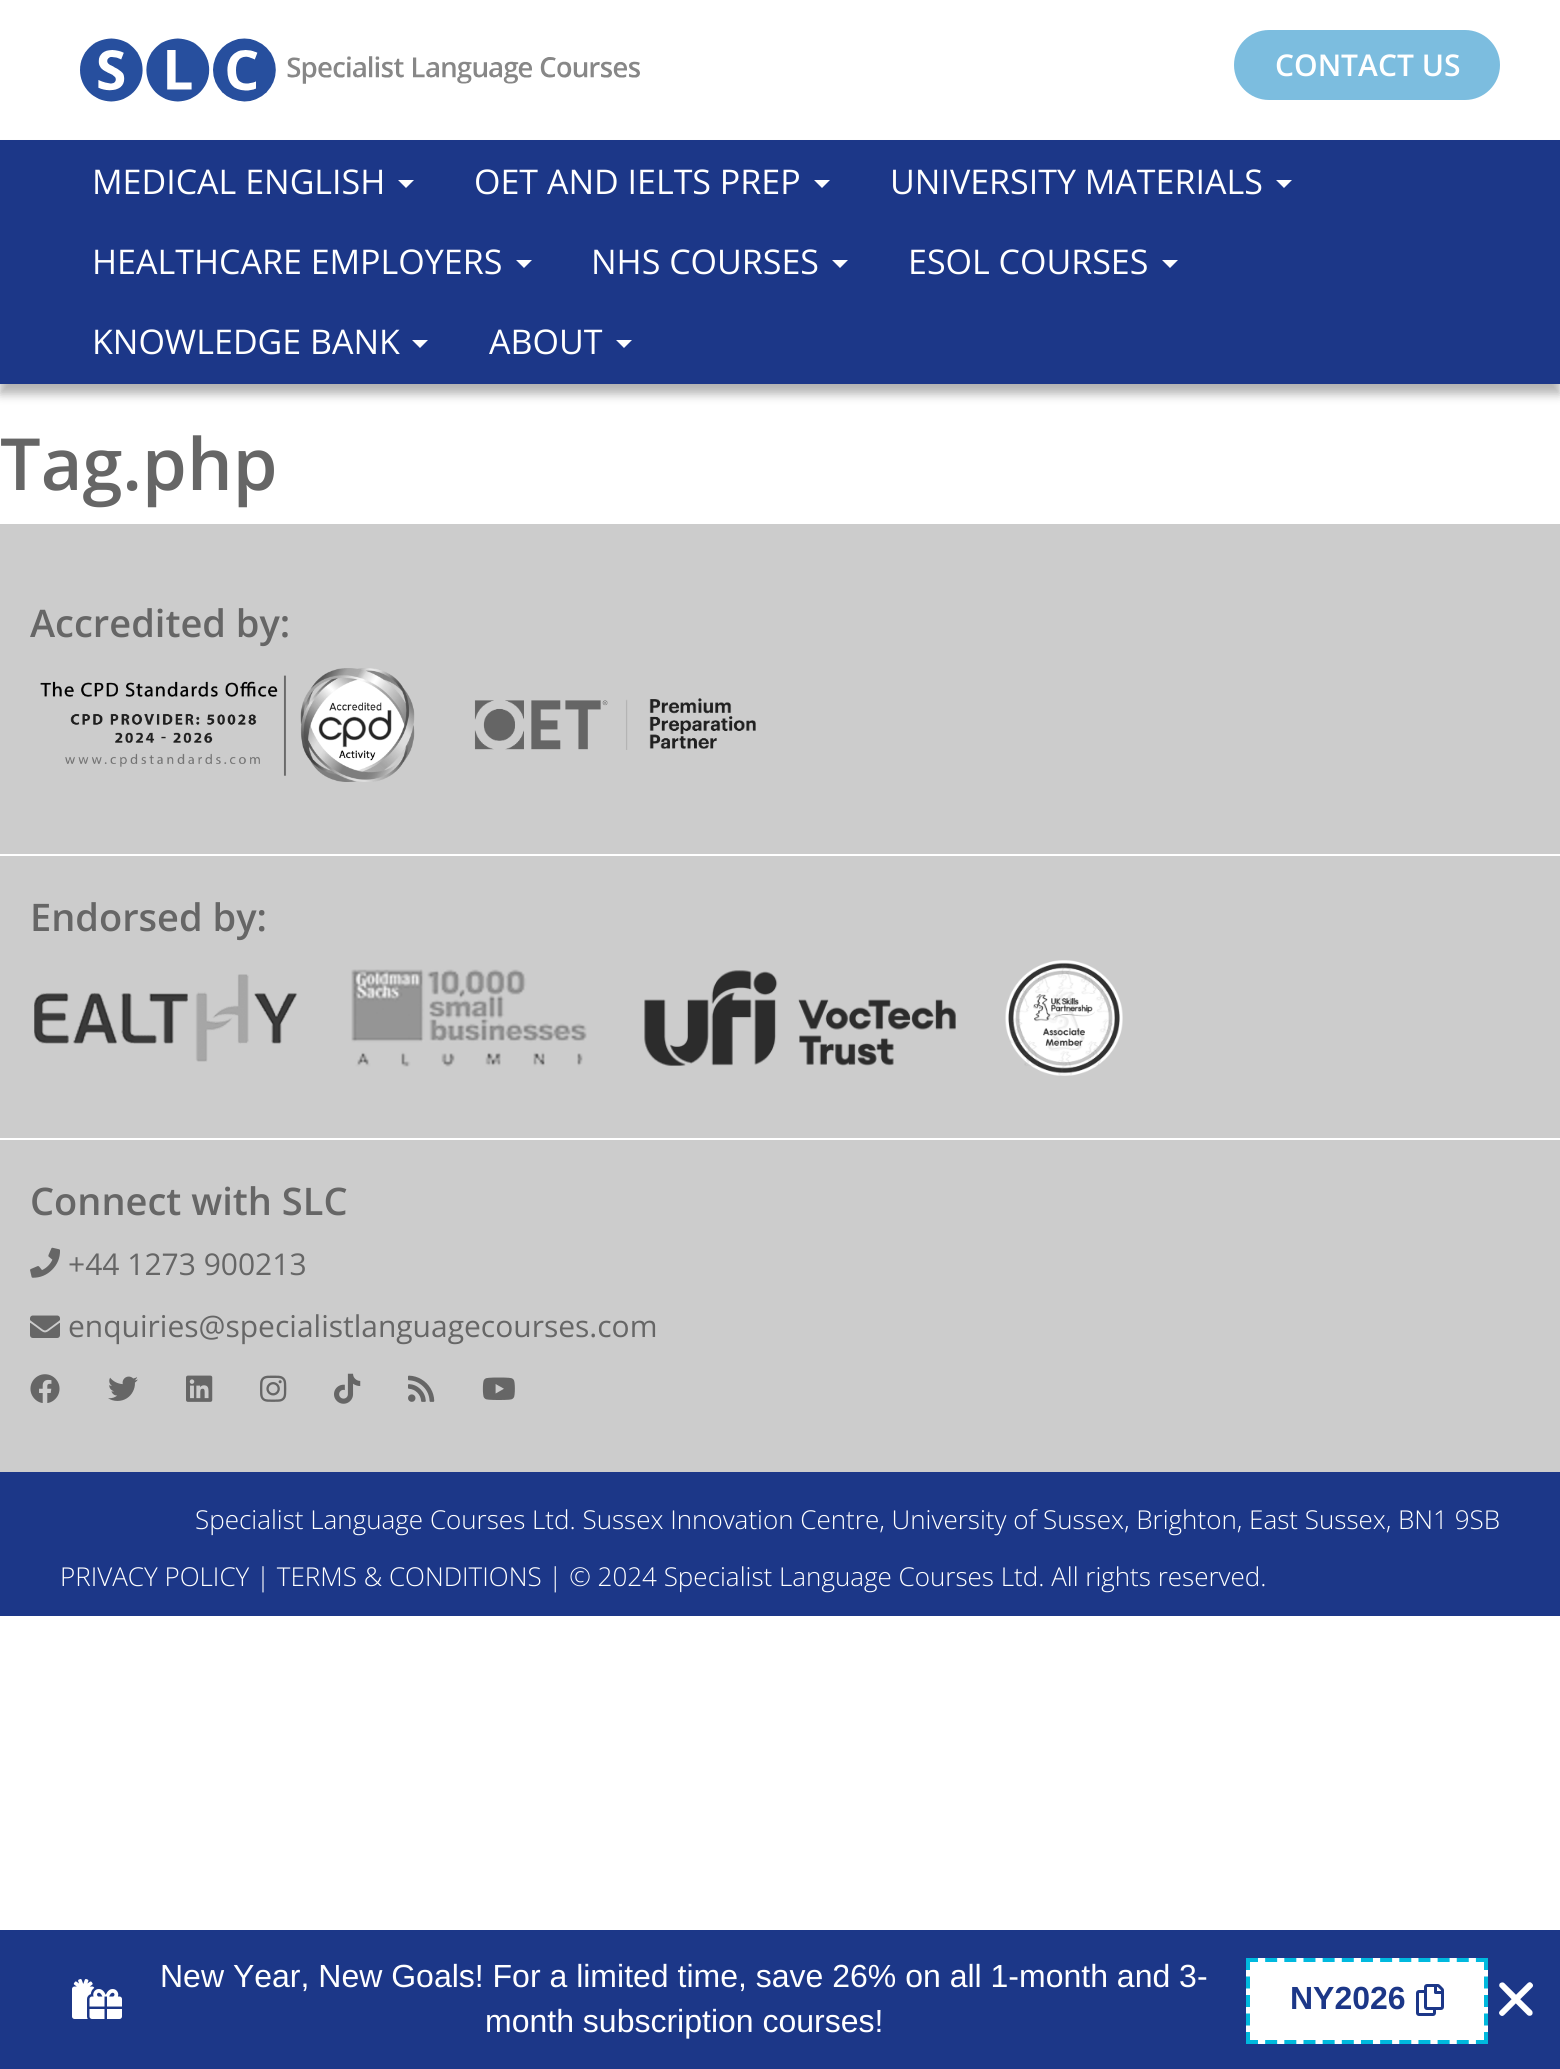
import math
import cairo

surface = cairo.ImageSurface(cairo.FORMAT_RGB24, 1560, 2069)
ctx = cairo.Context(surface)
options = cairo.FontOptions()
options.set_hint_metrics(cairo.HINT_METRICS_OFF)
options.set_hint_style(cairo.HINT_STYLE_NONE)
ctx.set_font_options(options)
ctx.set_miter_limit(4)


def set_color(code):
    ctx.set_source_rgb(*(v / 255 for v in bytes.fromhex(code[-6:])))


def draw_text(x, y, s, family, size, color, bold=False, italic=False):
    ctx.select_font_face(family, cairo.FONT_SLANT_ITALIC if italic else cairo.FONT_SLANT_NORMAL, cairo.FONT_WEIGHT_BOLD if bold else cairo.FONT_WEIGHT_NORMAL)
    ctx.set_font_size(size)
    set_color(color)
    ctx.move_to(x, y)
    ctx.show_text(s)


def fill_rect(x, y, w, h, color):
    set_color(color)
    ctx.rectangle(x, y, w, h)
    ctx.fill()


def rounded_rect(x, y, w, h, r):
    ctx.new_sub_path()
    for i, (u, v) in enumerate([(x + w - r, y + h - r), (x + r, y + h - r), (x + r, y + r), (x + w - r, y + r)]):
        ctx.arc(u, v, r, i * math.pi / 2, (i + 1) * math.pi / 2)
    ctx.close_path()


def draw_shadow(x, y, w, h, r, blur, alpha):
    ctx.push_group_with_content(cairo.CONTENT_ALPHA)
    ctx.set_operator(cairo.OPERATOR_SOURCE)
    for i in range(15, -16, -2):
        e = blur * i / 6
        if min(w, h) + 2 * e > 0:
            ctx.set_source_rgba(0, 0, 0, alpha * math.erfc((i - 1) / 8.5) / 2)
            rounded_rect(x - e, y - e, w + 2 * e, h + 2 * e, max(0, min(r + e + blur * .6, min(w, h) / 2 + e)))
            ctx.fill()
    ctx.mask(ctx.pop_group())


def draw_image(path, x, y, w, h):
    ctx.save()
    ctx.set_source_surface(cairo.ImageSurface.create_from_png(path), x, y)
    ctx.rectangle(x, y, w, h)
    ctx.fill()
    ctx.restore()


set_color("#ffffff")
ctx.paint()
draw_image("assets/img1.png", 80, 38, 560, 64)
set_color("#7cbddf")
rounded_rect(1234, 30, 266, 70, 35)
ctx.fill()
draw_text(1275, 76, "CONTACT US", "Open Sans SemiBold", 30, "#ffffff")
set_color("#000000")
draw_shadow(0, 150, 1560, 244, 0, 5, 0.3)
fill_rect(0, 140, 1560, 244, "#1c3788")
draw_text(92, 194, "MEDICAL ENGLISH", "Open Sans", 34, "#ffffff")
ctx.new_path()
ctx.move_to(398, 180)
ctx.line_to(414, 180)
ctx.line_to(406, 188)
ctx.close_path()
ctx.fill()
draw_text(474, 194, "OET AND IELTS PREP", "Open Sans", 34, "#ffffff")
ctx.new_path()
ctx.move_to(814, 180)
ctx.line_to(830, 180)
ctx.line_to(822, 188)
ctx.close_path()
ctx.fill()
draw_text(890, 194, "UNIVERSITY MATERIALS", "Open Sans", 34, "#ffffff")
ctx.new_path()
ctx.move_to(1276, 180)
ctx.line_to(1292, 180)
ctx.line_to(1284, 188)
ctx.close_path()
ctx.fill()
draw_text(92, 274, "HEALTHCARE EMPLOYERS", "Open Sans", 34, "#ffffff")
ctx.new_path()
ctx.move_to(516, 260)
ctx.line_to(532, 260)
ctx.line_to(524, 268)
ctx.close_path()
ctx.fill()
draw_text(591, 274, "NHS COURSES", "Open Sans", 34, "#ffffff")
ctx.new_path()
ctx.move_to(832, 260)
ctx.line_to(848, 260)
ctx.line_to(840, 268)
ctx.close_path()
ctx.fill()
draw_text(908, 274, "ESOL COURSES", "Open Sans", 34, "#ffffff")
ctx.new_path()
ctx.move_to(1162, 260)
ctx.line_to(1178, 260)
ctx.line_to(1170, 268)
ctx.close_path()
ctx.fill()
draw_text(92, 354, "KNOWLEDGE BANK", "Open Sans", 34, "#ffffff")
ctx.new_path()
ctx.move_to(412, 340)
ctx.line_to(428, 340)
ctx.line_to(420, 348)
ctx.close_path()
ctx.fill()
draw_text(489, 354, "ABOUT", "Open Sans", 34, "#ffffff")
ctx.new_path()
ctx.move_to(616, 340)
ctx.line_to(632, 340)
ctx.line_to(624, 348)
ctx.close_path()
ctx.fill()
draw_text(0, 490, "Tag.php", "Open Sans SemiBold", 72, "#666666")
fill_rect(0, 524, 1560, 948, "#cccccc")
draw_text(30, 637, "Accredited by:", "Open Sans SemiBold", 38, "#666666")
draw_image("assets/img2.png", 40, 668, 375, 114)
draw_image("assets/img3.png", 474, 698, 282, 52)
fill_rect(0, 854, 1560, 2, "#ffffff")
fill_rect(0, 1138, 1560, 2, "#ffffff")
draw_text(30, 931, "Endorsed by:", "Open Sans SemiBold", 38, "#666666")
draw_image("assets/img4.png", 34, 974, 264, 88)
draw_image("assets/img5.png", 351, 969, 236, 98)
draw_image("assets/img6.png", 644, 970, 312, 96)
draw_image("assets/img7.png", 1005, 960, 118, 116)
draw_text(30, 1215, "Connect with SLC", "Open Sans SemiBold", 38, "#666666")
draw_image("assets/img8.png", 30, 1247, 30, 31)
draw_text(68, 1275, "+44 1273 900213", "Open Sans", 30, "#666666")
draw_image("assets/img9.png", 30, 1315, 30, 23)
draw_text(68, 1337, "enquiries@specialistlanguagecourses.com", "Open Sans", 30, "#666666")
draw_image("assets/img10.png", 30, 1374, 30, 29)
draw_image("assets/img11.png", 108, 1376, 30, 25)
draw_image("assets/img12.png", 186, 1375, 27, 27)
draw_image("assets/img13.png", 260, 1375, 27, 27)
draw_image("assets/img14.png", 334, 1373, 27, 31)
draw_image("assets/img15.png", 408, 1375, 27, 27)
draw_image("assets/img16.png", 482, 1377, 33, 23)
fill_rect(0, 1472, 1560, 144, "#1c3788")
draw_text(195, 1529, "Specialist Language Courses Ltd. Sussex Innovation Centre, University of Sussex, Brighton, East Sussex, BN1 9SB", "Open Sans Light", 26, "#ffffff")
draw_text(60, 1586, "PRIVACY POLICY | TERMS & CONDITIONS | © 2024 Specialist Language Courses Ltd. All rights reserved.", "Open Sans Light", 26, "#ffffff")
fill_rect(0, 1930, 1560, 139, "#1c3788")
draw_image("assets/img17.png", 72, 1979, 50, 40)
draw_text(160, 1987, "New Year, New Goals! For a limited time, save 26% on all 1-month and 3-", "Liberation Sans", 32, "#ffffff")
draw_text(485, 2032, "month subscription courses!", "Liberation Sans", 32, "#ffffff")
fill_rect(1246, 1958, 242, 86, "#ffffff")
ctx.new_path()
ctx.move_to(1246, 1960)
ctx.line_to(1488, 1960)
set_color("#00b9de")
ctx.set_line_width(4)
ctx.set_dash([12, 7.16])
ctx.stroke()
ctx.new_path()
ctx.move_to(1486, 1958)
ctx.line_to(1486, 2044)
ctx.set_dash([12, 6.5])
ctx.stroke()
ctx.new_path()
ctx.move_to(1246, 2042)
ctx.line_to(1488, 2042)
ctx.set_dash([12, 7.16])
ctx.stroke()
ctx.new_path()
ctx.move_to(1248, 1958)
ctx.line_to(1248, 2044)
ctx.set_dash([12, 6.5])
ctx.stroke()
draw_text(1290, 2009, "NY2026", "Liberation Sans", 32, "#1c3788", bold=True)
draw_image("assets/img18.png", 1416, 1984, 28, 32)
draw_image("assets/img19.png", 1499, 1982, 34, 34)
surface.write_to_png("output.png")
